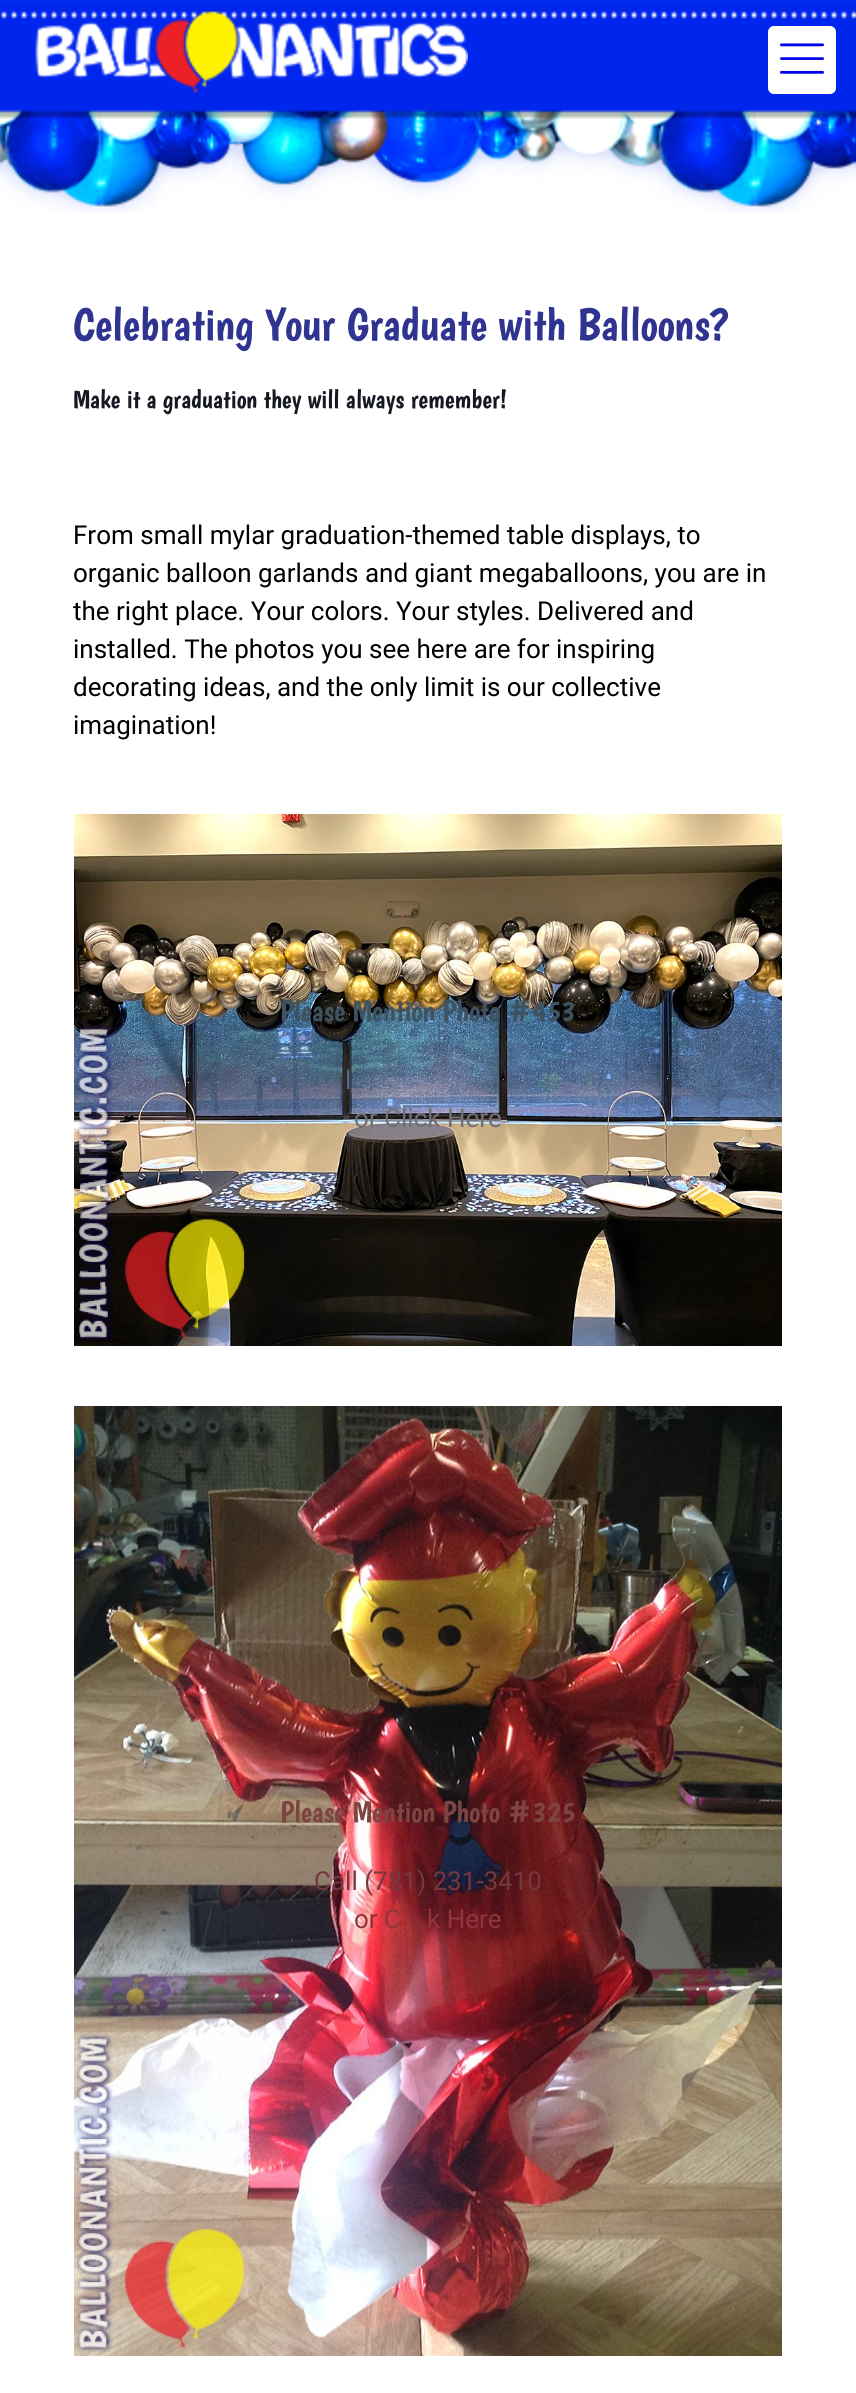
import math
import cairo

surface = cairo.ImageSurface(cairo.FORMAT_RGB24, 856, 2393)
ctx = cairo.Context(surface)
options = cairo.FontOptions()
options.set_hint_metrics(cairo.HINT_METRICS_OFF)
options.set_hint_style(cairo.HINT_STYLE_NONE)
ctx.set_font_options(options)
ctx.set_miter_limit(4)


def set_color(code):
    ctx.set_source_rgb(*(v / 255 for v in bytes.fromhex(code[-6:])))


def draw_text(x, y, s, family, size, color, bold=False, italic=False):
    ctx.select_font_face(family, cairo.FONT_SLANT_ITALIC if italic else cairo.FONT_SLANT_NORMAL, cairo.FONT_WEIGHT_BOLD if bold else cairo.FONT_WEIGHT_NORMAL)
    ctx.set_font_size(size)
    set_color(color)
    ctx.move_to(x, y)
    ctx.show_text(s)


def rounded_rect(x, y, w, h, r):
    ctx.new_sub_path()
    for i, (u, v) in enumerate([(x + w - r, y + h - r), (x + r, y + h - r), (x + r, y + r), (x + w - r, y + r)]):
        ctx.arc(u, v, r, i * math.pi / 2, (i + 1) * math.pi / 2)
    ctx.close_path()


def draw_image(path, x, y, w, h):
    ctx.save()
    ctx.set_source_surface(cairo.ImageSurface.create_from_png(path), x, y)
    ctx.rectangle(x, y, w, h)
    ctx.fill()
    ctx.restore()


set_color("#ffffff")
ctx.paint()
draw_image("assets/img1.png", 0, 0, 856, 132)
draw_image("assets/img2.png", 35, 11, 433, 82)
set_color("#ffffff")
rounded_rect(768, 26, 68, 68, 6)
ctx.fill()
draw_image("assets/img3.png", 780, 43, 44, 31)
draw_image("assets/img4.png", 0, 110, 856, 102)
draw_text(73, 340, "Celebrating Your Graduate with Balloons?", "Boogaloo", 46, "#2f3490")
draw_text(73, 408, "Make it a graduation they will always remember!", "Boogaloo", 26, "#161922")
draw_text(73, 544, "From small mylar graduation-themed table displays, to", "Roboto", 26, "#000000")
draw_text(73, 582, "organic balloon garlands and giant megaballoons, you are in", "Roboto", 26, "#000000")
draw_text(73, 620, "the right place. Your colors. Your styles. Delivered and", "Roboto", 26, "#000000")
draw_text(73, 658, "installed. The photos you see here are for inspiring", "Roboto", 26, "#000000")
draw_text(73, 696, "decorating ideas, and the only limit is our collective", "Roboto", 26, "#000000")
draw_text(73, 734, "imagination!", "Roboto", 26, "#000000")
draw_image("assets/img5.png", 74, 814, 708, 532)
draw_text(280, 1021, "Please Mention Photo #453", "Boogaloo", 30, "#3f525f")
draw_text(345, 1089, "l", "Roboto", 26, "#596a86")
draw_text(354, 1127, "or Click Here", "Roboto", 26, "#716f74")
draw_image("assets/img6.png", 74, 1406, 708, 950)
draw_text(280, 1822, "Please Mention Photo #325", "Boogaloo", 30, "#7d4442")
draw_text(314, 1890, "Call (781) 231-3410", "Roboto", 26, "#753841")
draw_text(354, 1928, "or C", "Roboto", 26, "#93343a")
draw_text(427, 1928, "k Here", "Roboto", 26, "#93343a")
surface.write_to_png("output.png")
